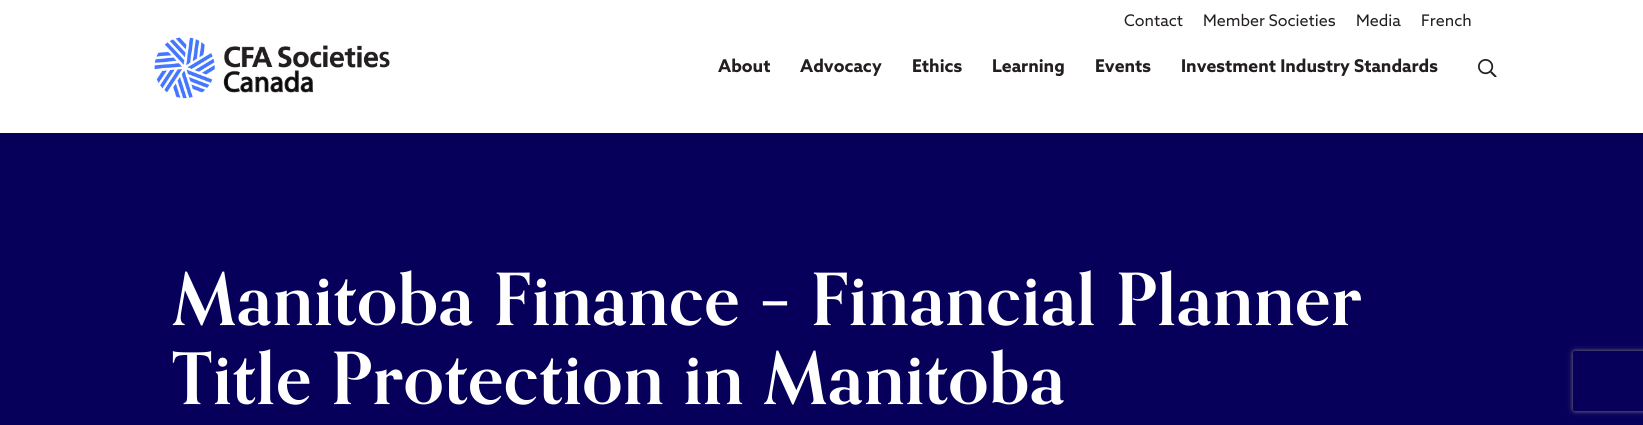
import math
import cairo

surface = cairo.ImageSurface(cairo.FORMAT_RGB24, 1643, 425)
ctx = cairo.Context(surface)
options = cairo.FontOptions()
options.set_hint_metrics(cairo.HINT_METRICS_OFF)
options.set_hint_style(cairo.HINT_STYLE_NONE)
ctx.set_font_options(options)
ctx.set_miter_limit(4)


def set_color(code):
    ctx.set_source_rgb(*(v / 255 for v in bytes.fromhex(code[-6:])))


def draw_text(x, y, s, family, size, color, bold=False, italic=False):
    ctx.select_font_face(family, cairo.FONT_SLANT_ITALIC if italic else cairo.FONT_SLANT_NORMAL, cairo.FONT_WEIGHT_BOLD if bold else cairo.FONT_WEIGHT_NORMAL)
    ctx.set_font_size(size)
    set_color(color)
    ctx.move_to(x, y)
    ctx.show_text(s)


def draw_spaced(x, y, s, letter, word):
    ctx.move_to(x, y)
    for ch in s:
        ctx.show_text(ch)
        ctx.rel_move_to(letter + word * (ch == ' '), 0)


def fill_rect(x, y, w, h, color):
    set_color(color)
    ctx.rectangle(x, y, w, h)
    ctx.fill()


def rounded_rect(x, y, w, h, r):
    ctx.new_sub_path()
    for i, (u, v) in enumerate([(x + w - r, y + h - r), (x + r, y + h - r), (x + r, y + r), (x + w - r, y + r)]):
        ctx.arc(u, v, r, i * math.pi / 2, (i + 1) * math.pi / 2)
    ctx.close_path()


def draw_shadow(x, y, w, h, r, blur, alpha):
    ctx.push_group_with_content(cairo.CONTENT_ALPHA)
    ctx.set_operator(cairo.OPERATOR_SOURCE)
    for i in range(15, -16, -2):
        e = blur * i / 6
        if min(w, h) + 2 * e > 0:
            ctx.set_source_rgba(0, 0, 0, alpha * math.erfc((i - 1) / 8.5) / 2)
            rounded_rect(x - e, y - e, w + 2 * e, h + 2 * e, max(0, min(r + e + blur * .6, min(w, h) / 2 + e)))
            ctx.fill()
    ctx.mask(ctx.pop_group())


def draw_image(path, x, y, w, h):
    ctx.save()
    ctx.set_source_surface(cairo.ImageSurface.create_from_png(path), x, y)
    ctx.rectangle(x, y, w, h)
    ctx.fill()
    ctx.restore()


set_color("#ffffff")
ctx.paint()
draw_text(1124, 26, "Contact", "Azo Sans", 16, "#231f20")
draw_text(1203, 26, "Member Societies", "Azo Sans", 16, "#231f20")
draw_text(1356, 26, "Media", "Azo Sans", 16, "#231f20")
draw_text(1421, 26, "French", "Azo Sans", 16, "#231f20")
draw_image("assets/img1.png", 154, 37, 236, 62)
draw_text(718, 72, "About", "Azo Sans", 17.6, "#231f20", bold=True)
draw_text(800, 72, "Advocacy", "Azo Sans", 17.6, "#231f20", bold=True)
draw_text(912, 72, "Ethics", "Azo Sans", 17.6, "#231f20", bold=True)
draw_text(992, 72, "Learning", "Azo Sans", 17.6, "#231f20", bold=True)
draw_text(1095, 72, "Events", "Azo Sans", 17.6, "#231f20", bold=True)
draw_text(1181, 72, "Investment Industry Standards", "Azo Sans", 17.6, "#231f20", bold=True)
draw_image("assets/img2.png", 1478, 59, 19, 18)
fill_rect(0, 133, 1643, 292, "#06005a")
ctx.select_font_face("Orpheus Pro", cairo.FONT_SLANT_NORMAL, cairo.FONT_WEIGHT_BOLD)
ctx.set_font_size(72)
set_color("#ffffff")
draw_spaced(172, 325, "Manitoba Finance – Financial Planner", 1, 0)
draw_spaced(172, 404, "Title Protection in Manitoba", 1, 0)
ctx.save()
ctx.set_fill_rule(cairo.FILL_RULE_EVEN_ODD)
ctx.new_path()
ctx.move_to(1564, 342)
ctx.line_to(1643, 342)
ctx.line_to(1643, 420)
ctx.line_to(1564, 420)
ctx.close_path()
ctx.move_to(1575, 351)
ctx.line_to(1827, 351)
ctx.curve_to(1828, 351, 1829, 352, 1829, 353)
ctx.line_to(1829, 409)
ctx.curve_to(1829, 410, 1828, 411, 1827, 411)
ctx.line_to(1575, 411)
ctx.curve_to(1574, 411, 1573, 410, 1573, 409)
ctx.line_to(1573, 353)
ctx.curve_to(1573, 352, 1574, 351, 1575, 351)
ctx.close_path()
ctx.clip()
set_color("#808080")
draw_shadow(1573, 351, 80, 60, 2, 2.5, 1)
ctx.restore()
surface.write_to_png("output.png")
